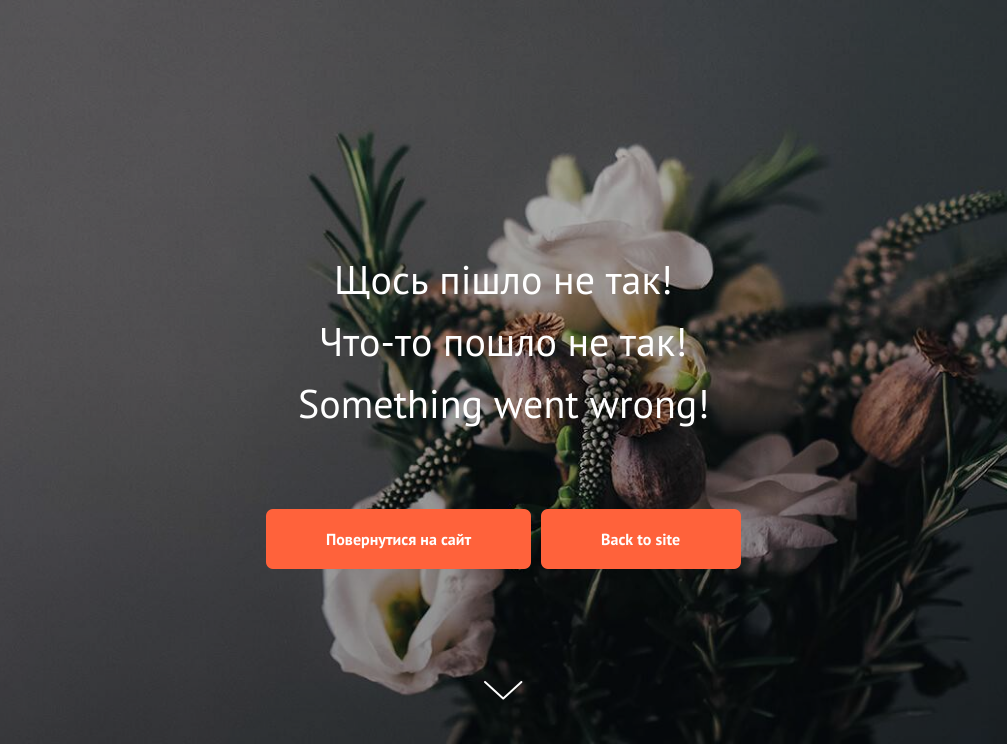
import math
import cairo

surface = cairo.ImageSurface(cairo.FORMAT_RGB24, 1007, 744)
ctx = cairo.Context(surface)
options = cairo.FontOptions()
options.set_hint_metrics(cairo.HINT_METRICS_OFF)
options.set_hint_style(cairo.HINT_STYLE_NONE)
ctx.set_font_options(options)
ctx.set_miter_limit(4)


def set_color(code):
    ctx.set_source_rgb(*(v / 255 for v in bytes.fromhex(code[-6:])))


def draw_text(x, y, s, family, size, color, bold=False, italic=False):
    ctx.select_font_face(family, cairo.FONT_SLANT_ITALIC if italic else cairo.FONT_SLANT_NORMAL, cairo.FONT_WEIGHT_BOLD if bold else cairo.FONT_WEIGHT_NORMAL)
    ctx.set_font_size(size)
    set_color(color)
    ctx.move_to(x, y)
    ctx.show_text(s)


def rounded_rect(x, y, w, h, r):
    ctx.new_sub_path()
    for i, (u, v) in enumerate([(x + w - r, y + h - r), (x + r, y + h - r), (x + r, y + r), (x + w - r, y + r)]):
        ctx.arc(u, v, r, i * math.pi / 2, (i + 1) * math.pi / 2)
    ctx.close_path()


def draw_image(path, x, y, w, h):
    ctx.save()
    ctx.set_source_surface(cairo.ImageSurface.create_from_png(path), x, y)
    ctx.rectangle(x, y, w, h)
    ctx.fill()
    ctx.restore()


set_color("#ffffff")
ctx.paint()
draw_image("assets/img1.png", 0, 0, 1007, 744)
draw_text(334, 294, "Щось пішло не так!", "PT Sans", 40, "#ffffff")
draw_text(319, 356, "Что-то пошло не так!", "PT Sans", 40, "#ffffff")
draw_text(298, 418, "Something went wrong!", "PT Sans", 40, "#ffffff")
set_color("#ff623b")
rounded_rect(266, 509, 265, 60, 7)
ctx.fill()
draw_text(326, 545, "Повернутися на сайт", "PT Sans", 16, "#ffffff", bold=True)
set_color("#ff623b")
rounded_rect(541, 509, 200, 60, 7)
ctx.fill()
draw_text(601, 545, "Back to site", "PT Sans", 16, "#ffffff", bold=True)
draw_image("assets/img2.png", 484, 681, 39, 19)
surface.write_to_png("output.png")
